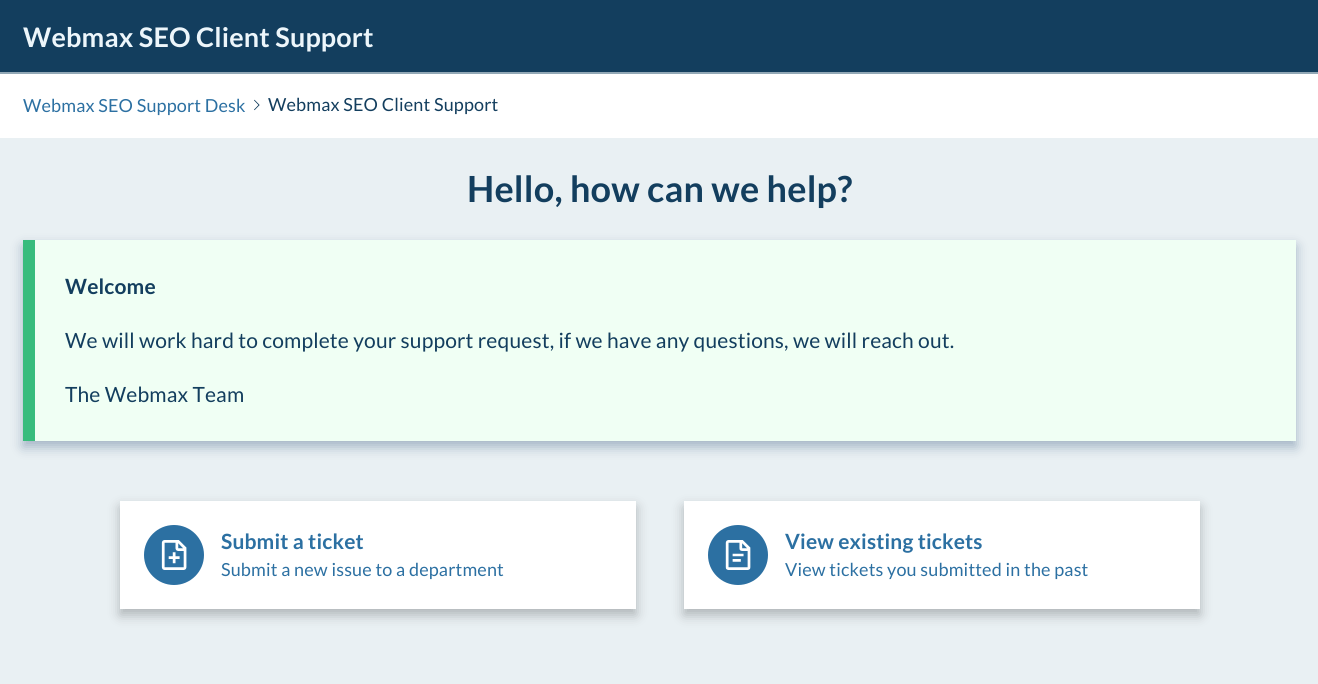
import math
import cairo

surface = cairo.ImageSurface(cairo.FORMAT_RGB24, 1318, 684)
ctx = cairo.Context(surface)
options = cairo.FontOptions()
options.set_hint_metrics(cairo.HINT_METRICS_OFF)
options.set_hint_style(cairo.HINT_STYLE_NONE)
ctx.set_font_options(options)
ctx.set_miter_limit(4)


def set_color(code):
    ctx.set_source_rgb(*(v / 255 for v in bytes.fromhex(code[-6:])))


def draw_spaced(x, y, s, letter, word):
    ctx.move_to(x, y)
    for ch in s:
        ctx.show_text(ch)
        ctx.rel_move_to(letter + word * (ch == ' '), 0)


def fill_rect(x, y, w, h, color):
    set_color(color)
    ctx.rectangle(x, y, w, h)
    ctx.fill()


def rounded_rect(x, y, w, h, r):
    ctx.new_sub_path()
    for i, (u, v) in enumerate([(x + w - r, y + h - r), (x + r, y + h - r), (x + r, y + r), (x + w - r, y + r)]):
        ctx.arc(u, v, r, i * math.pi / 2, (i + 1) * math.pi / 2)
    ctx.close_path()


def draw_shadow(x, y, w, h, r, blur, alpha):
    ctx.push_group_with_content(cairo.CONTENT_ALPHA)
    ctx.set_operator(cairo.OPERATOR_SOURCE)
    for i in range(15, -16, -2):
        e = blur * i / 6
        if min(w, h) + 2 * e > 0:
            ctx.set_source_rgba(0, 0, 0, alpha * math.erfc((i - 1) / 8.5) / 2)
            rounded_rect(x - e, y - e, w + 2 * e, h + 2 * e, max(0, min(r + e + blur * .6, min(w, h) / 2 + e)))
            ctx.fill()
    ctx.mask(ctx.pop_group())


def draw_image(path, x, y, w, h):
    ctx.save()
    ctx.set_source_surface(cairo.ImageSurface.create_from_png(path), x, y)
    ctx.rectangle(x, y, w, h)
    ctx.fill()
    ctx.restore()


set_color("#ffffff")
ctx.paint()
fill_rect(0, 0, 1318, 72, "#133e5e")
fill_rect(0, 72, 1318, 2, "#92a8b6")
ctx.select_font_face("Lato", cairo.FONT_SLANT_NORMAL, cairo.FONT_WEIGHT_BOLD)
ctx.set_font_size(27)
set_color("#edf6fb")
draw_spaced(23, 47, "Webmax SEO Client Support", 0.15, 0)
ctx.select_font_face("Lato")
ctx.set_font_size(18)
set_color("#2c70a2")
draw_spaced(23, 112, "Webmax SEO Support Desk", 0.15, 0)
draw_image("assets/img1.png", 254, 99, 6, 12)
set_color("#133e5e")
draw_spaced(268, 111, "Webmax SEO Client Support", 0.15, 0)
fill_rect(0, 138, 1318, 546, "#e9f0f3")
ctx.select_font_face("Lato", cairo.FONT_SLANT_NORMAL, cairo.FONT_WEIGHT_BOLD)
ctx.set_font_size(36)
set_color("#133e5e")
draw_spaced(467, 202, "Hello, how can we help?", 0.2, 0)
set_color("#002959")
draw_shadow(23, 246, 1273, 201, 0, 6, 0.3)
fill_rect(35, 240, 1261, 201, "#f0fff4")
fill_rect(23, 240, 12, 201, "#38bc7d")
ctx.set_font_size(21)
set_color("#133e5e")
draw_spaced(65, 294, "Welcome", 0.15, 0)
ctx.select_font_face("Lato")
draw_spaced(65, 348, "We will work hard to complete your support request, if we have any questions, we will reach out.", 0.15, 0)
draw_spaced(65, 402, "The Webmax Team", 0.15, 0)
set_color("#26282a")
draw_shadow(120, 507, 516, 108, 0, 6, 0.3)
fill_rect(120, 501, 516, 108, "#ffffff")
set_color("#2c70a2")
ctx.arc(174, 555, 30, 0, 2 * math.pi)
ctx.fill()
draw_image("assets/img2.png", 161, 540, 26, 30)
ctx.select_font_face("Lato", cairo.FONT_SLANT_NORMAL, cairo.FONT_WEIGHT_BOLD)
draw_spaced(221, 549, "Submit a ticket", 0.15, 0)
ctx.select_font_face("Lato")
ctx.set_font_size(18)
draw_spaced(221, 576, "Submit a new issue to a department", 0.15, 0)
set_color("#26282a")
draw_shadow(684, 507, 516, 108, 0, 6, 0.3)
fill_rect(684, 501, 516, 108, "#ffffff")
set_color("#2c70a2")
ctx.arc(738, 555, 30, 0, 2 * math.pi)
ctx.fill()
draw_image("assets/img3.png", 725, 540, 26, 30)
ctx.select_font_face("Lato", cairo.FONT_SLANT_NORMAL, cairo.FONT_WEIGHT_BOLD)
ctx.set_font_size(21)
draw_spaced(785, 549, "View existing tickets", 0.15, 0)
ctx.select_font_face("Lato")
ctx.set_font_size(18)
draw_spaced(785, 576, "View tickets you submitted in the past", 0.15, 0)
surface.write_to_png("output.png")
